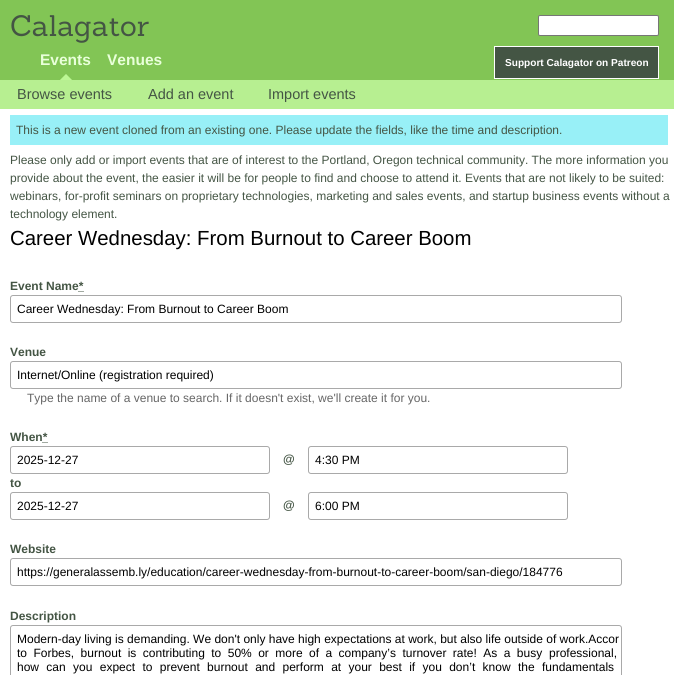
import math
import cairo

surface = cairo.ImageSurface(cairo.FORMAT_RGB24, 674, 675)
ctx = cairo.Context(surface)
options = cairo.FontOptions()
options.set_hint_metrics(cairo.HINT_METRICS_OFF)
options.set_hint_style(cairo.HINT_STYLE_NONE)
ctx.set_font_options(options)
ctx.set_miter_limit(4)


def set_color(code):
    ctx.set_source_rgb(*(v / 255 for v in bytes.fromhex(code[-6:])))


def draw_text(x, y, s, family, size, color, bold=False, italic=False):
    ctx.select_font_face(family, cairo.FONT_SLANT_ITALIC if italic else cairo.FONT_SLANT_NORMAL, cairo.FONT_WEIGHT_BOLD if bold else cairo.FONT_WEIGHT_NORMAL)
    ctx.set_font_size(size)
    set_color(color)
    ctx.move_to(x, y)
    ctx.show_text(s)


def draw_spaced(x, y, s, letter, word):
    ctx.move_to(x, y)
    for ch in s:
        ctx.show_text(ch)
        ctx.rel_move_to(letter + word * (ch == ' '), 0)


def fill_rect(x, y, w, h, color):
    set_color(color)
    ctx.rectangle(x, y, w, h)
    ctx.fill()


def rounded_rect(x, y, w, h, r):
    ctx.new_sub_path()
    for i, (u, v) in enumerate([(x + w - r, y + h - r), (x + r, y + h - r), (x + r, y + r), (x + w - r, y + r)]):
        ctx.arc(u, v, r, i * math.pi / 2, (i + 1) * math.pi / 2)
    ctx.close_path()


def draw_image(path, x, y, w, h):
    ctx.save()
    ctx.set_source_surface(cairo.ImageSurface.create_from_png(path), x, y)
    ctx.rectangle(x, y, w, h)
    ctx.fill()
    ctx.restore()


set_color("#ffffff")
ctx.paint()
fill_rect(0, 0, 674, 80, "#82c555")
draw_text(10, 36, "Calagator", "Sanchez", 29, "#445544")
set_color("#ffffff")
rounded_rect(538.5, 15.5, 120, 20, 1.5)
ctx.fill_preserve()
set_color("#767676")
ctx.set_line_width(1)
ctx.stroke()
draw_image("assets/img1.png", 60, 74, 12, 6)
draw_text(40, 65, "Events", "Liberation Sans", 15.5, "#e8ffd9", bold=True)
draw_text(107, 65, "Venues", "Liberation Sans", 15.5, "#e8ffd9", bold=True)
set_color("#445544")
ctx.rectangle(494.5, 46.5, 164, 32)
ctx.fill_preserve()
set_color("#ffffff")
ctx.stroke()
draw_text(505, 66, "Support Calagator on Patreon", "Liberation Sans", 10.1, "#ffffff", bold=True)
fill_rect(0, 80, 674, 29, "#b7ef91")
draw_text(17, 99, "Browse events", "Liberation Sans", 14.5, "#445544")
draw_text(148, 99, "Add an event", "Liberation Sans", 14.5, "#445544")
draw_text(268, 99, "Import events", "Liberation Sans", 14.5, "#445544")
fill_rect(10, 115, 658, 30, "#98f0f7")
draw_text(16, 134, "This is a new event cloned from an existing one. Please update the fields, like the time and description.", "Liberation Sans", 12, "#445544")
draw_text(10, 164, "Please only add or import events that are of interest to the Portland, Oregon technical community. The more information you", "Liberation Sans", 12, "#445544")
draw_text(10, 182, "provide about the event, the easier it will be for people to find and choose to attend it. Events that are not likely to be suited:", "Liberation Sans", 12, "#445544")
draw_text(10, 200, "webinars, for-profit seminars on proprietary technologies, marketing and sales events, and startup business events without a", "Liberation Sans", 12, "#445544")
draw_text(10, 218, "technology element.", "Liberation Sans", 12, "#445544")
draw_text(10, 245, "Career Wednesday: From Burnout to Career Boom", "Liberation Sans", 20.4, "#000000")
draw_text(10, 290, "Event Name*", "Liberation Sans", 12, "#445544", bold=True)
ctx.new_path()
ctx.move_to(78.5, 291.5)
ctx.line_to(79.5, 291.5)
ctx.move_to(80.5, 291.5)
ctx.line_to(81.5, 291.5)
ctx.move_to(82.5, 291.5)
ctx.line_to(83.5, 291.5)
ctx.stroke()
rounded_rect(10.5, 295.5, 611, 27, 2.5)
set_color("#a9a9a9")
ctx.stroke()
draw_text(17, 313, "Career Wednesday: From Burnout to Career Boom", "Liberation Sans", 12, "#000000")
draw_text(10, 356, "Venue", "Liberation Sans", 12, "#445544", bold=True)
rounded_rect(10.5, 361.5, 611, 27, 2.5)
set_color("#a9a9a9")
ctx.stroke()
draw_text(17, 379, "Internet/Online (registration required)", "Liberation Sans", 12, "#000000")
draw_text(27, 402, "Type the name of a venue to search. If it doesn't exist, we'll create it for you.", "Liberation Sans", 12, "#666666")
draw_text(10, 441, "When*", "Liberation Sans", 12, "#445544", bold=True)
ctx.new_path()
ctx.move_to(42.5, 442.5)
ctx.line_to(43.5, 442.5)
ctx.move_to(44.5, 442.5)
ctx.line_to(45.5, 442.5)
ctx.move_to(46.5, 442.5)
ctx.line_to(47.5, 442.5)
ctx.stroke()
rounded_rect(10.5, 446.5, 259, 27, 2.5)
set_color("#a9a9a9")
ctx.stroke()
draw_text(17, 464, "2025-12-27", "Liberation Sans", 12, "#000000")
draw_text(283, 463, "@", "Liberation Sans", 12, "#445544", bold=True)
rounded_rect(308.5, 446.5, 259, 27, 2.5)
set_color("#a9a9a9")
ctx.stroke()
draw_text(315, 464, "4:30 PM", "Liberation Sans", 12, "#000000")
draw_text(10, 487, "to", "Liberation Sans", 12, "#445544", bold=True)
rounded_rect(10.5, 492.5, 259, 27, 2.5)
set_color("#a9a9a9")
ctx.stroke()
draw_text(17, 510, "2025-12-27", "Liberation Sans", 12, "#000000")
draw_text(283, 509, "@", "Liberation Sans", 12, "#445544", bold=True)
rounded_rect(308.5, 492.5, 259, 27, 2.5)
set_color("#a9a9a9")
ctx.stroke()
draw_text(315, 510, "6:00 PM", "Liberation Sans", 12, "#000000")
draw_text(10, 553, "Website", "Liberation Sans", 12, "#445544", bold=True)
rounded_rect(10.5, 558.5, 611, 27, 2.5)
set_color("#a9a9a9")
ctx.stroke()
draw_text(17, 576, "https://generalassemb.ly/education/career-wednesday-from-burnout-to-career-boom/san-diego/184776", "Liberation Sans", 12, "#000000")
draw_text(10, 620, "Description", "Liberation Sans", 12, "#445544", bold=True)
rounded_rect(10.5, 625.5, 611, 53, 2.5)
set_color("#a9a9a9")
ctx.stroke()
draw_text(17, 643, "Modern-day living is demanding. We don't only have high expectations at work, but also life outside of work.Accor", "Liberation Sans", 12, "#000000")
draw_spaced(17, 657, "to Forbes, burnout is contributing to 50% or more of a company’s turnover rate! As a busy", 0, 3.1)
draw_text(549, 657, "professional,", "Liberation Sans", 12, "#000000")
draw_spaced(17, 671, "how can you expect to prevent burnout and perform at your best if you don’t know the", 0, 4)
draw_text(542, 671, "fundamentals", "Liberation Sans", 12, "#000000")
surface.write_to_png("output.png")
